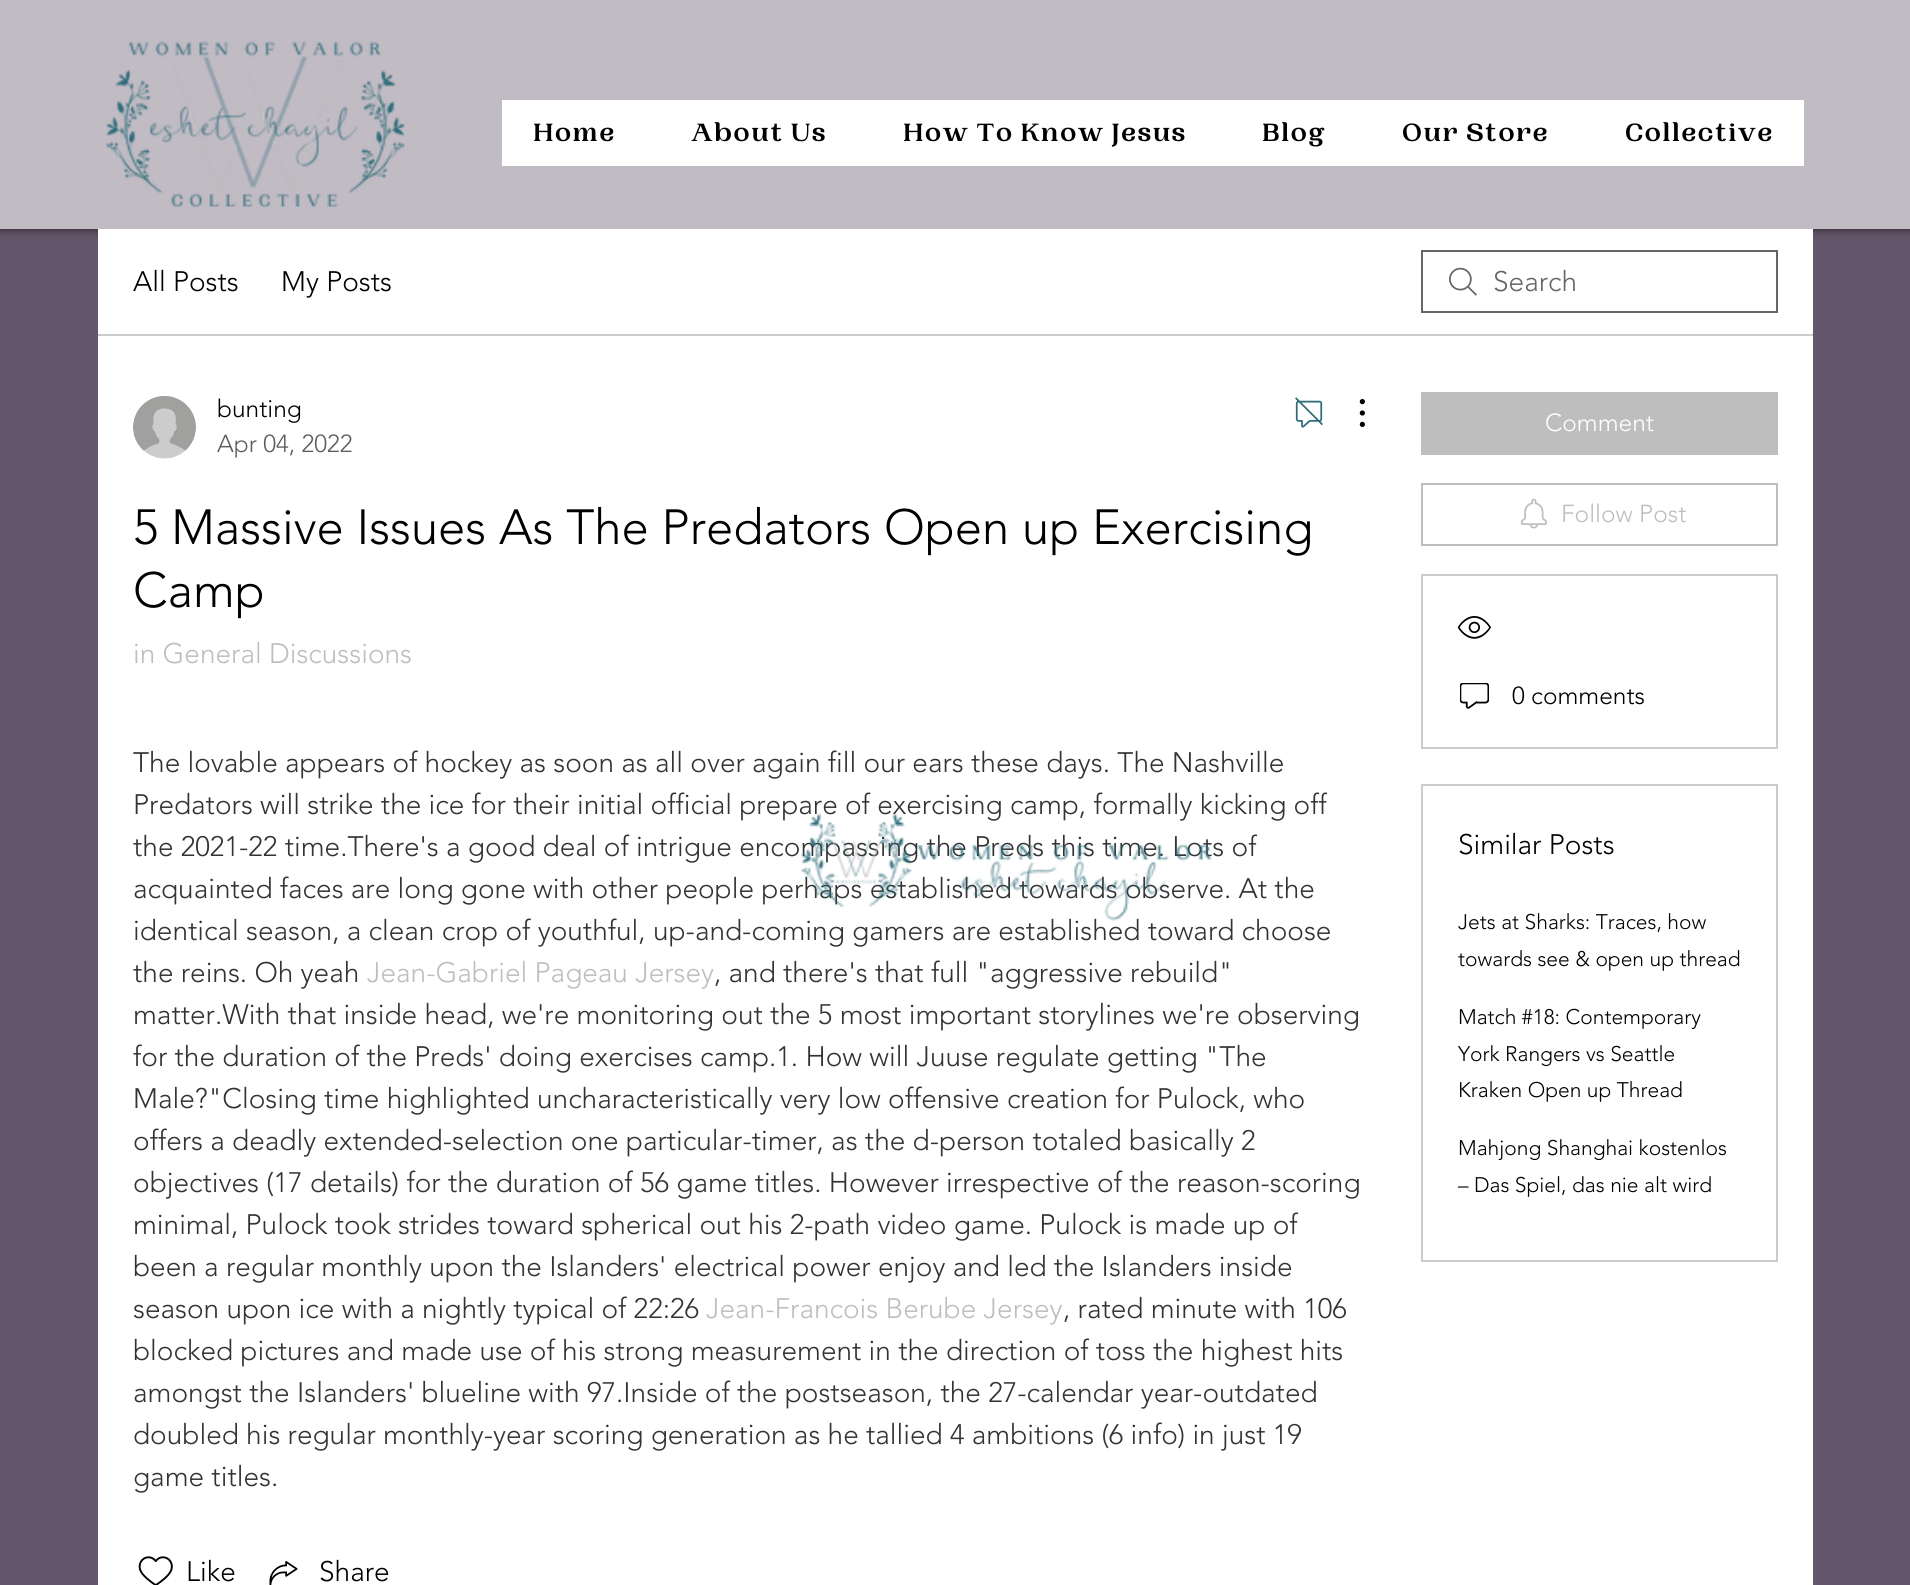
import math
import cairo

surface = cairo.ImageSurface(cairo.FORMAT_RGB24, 1910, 1585)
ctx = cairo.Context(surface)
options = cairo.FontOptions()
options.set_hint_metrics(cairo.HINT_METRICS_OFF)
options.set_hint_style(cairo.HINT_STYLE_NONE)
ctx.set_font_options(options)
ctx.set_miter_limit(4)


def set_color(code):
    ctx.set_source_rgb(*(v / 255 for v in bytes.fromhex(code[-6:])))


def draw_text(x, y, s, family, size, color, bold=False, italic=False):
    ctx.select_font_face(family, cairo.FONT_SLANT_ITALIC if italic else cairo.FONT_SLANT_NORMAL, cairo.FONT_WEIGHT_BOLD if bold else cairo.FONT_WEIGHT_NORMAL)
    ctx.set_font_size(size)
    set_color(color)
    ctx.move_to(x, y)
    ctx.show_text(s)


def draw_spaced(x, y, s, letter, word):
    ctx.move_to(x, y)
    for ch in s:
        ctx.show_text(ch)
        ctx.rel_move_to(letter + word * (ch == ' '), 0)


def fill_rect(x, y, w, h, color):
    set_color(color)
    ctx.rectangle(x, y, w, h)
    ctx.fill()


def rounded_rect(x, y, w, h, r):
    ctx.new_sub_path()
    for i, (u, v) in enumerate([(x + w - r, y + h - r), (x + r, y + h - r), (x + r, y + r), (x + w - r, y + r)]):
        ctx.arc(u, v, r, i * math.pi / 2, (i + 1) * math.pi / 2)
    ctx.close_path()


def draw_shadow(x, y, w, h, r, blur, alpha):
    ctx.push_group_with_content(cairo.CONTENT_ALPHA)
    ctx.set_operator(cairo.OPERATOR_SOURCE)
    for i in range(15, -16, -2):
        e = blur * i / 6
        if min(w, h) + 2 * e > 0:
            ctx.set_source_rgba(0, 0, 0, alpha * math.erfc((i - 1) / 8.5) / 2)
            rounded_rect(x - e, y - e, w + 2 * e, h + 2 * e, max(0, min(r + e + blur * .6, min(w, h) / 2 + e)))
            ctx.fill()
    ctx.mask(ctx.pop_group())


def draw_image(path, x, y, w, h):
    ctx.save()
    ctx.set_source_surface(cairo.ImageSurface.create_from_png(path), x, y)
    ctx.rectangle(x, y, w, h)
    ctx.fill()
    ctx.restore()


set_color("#65566b")
ctx.paint()
set_color("#000000")
draw_shadow(0, 0, 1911, 229, 0, 4.5, 0.7)
fill_rect(0, 0, 1910, 229, "#c1bbc4")
draw_image("assets/img1.png", 106, 41, 299, 167)
fill_rect(502, 100, 1302, 66, "#ffffff")
ctx.select_font_face("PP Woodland", cairo.FONT_SLANT_NORMAL, cairo.FONT_WEIGHT_BOLD)
ctx.set_font_size(26.25)
set_color("#000000")
draw_spaced(533, 141, "Home", 1.3, 0)
draw_spaced(691, 141, "About Us", 1.3, 0)
draw_spaced(903, 141, "How To Know Jesus", 1.3, 0)
draw_spaced(1262, 141, "Blog", 1.3, 0)
draw_spaced(1402, 141, "Our Store", 1.3, 0)
draw_spaced(1625, 141, "Collective", 1.3, 0)
fill_rect(98, 229, 1715, 1356, "#ffffff")
fill_rect(98, 334, 1715, 2, "#cccccc")
draw_text(133, 291, "All Posts", "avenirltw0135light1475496 Light", 28, "#000000")
draw_text(281, 291, "My Posts", "avenirltw0135light1475496 Light", 28, "#000000")
draw_image("assets/img2.png", 1449, 267, 28, 29)
ctx.rectangle(1422, 251, 355, 61)
set_color("#666666")
ctx.stroke()
draw_text(1493, 291, "Search", "avenirltw0135light1475496 Light", 28, "#666666")
draw_image("assets/img3.png", 133, 396, 63, 63)
draw_text(217, 417, "bunting", "avenirltw0135light1475496 Light", 24.5, "#000000")
draw_text(217, 452, "Apr 04, 2022", "avenirltw0135light1475496 Light", 24.5, "#5c5c5c")
draw_image("assets/img4.png", 1295, 397, 28, 31)
draw_image("assets/img5.png", 1359, 399, 6, 28)
draw_text(133, 544, "5 Massive Issues As The Predators Open up Exercising", "avenirltw0135light1475496 Light", 49, "#000000")
draw_text(133, 607, "Camp", "avenirltw0135light1475496 Light", 49, "#000000")
draw_text(133, 663, "in General Discussions", "avenirltw0135light1475496 Light", 28, "#bebebe")
draw_text(133, 772, "The lovable appears of hockey as soon as all over again fill our ears these days. The Nashville", "avenirltw0135light1475496 Light", 28, "#333333")
draw_text(133, 814, "Predators will strike the ice for their initial official prepare of exercising camp, formally kicking off", "avenirltw0135light1475496 Light", 28, "#333333")
draw_text(133, 856, "the 2021-22 time.There's a good deal of intrigue encompassing the Preds this time. Lots of", "avenirltw0135light1475496 Light", 28, "#333333")
draw_text(133, 898, "acquainted faces are long gone with other people perhaps established towards observe. At the", "avenirltw0135light1475496 Light", 28, "#333333")
draw_text(133, 940, "identical season, a clean crop of youthful, up-and-coming gamers are established toward choose", "avenirltw0135light1475496 Light", 28, "#333333")
draw_text(133, 982, "the reins. Oh yeah", "avenirltw0135light1475496 Light", 28, "#333333")
draw_text(367, 982, "Jean-Gabriel Pageau Jersey", "avenirltw0135light1475496 Light", 28, "#bebebe")
draw_text(714, 982, ", and there's that full \"aggressive rebuild\"", "avenirltw0135light1475496 Light", 28, "#333333")
draw_text(133, 1024, "matter.With that inside head, we're monitoring out the 5 most important storylines we're observing", "avenirltw0135light1475496 Light", 28, "#333333")
draw_text(133, 1066, "for the duration of the Preds' doing exercises camp.1. How will Juuse regulate getting \"The", "avenirltw0135light1475496 Light", 28, "#333333")
draw_text(133, 1108, "Male?\"Closing time highlighted uncharacteristically very low offensive creation for Pulock, who", "avenirltw0135light1475496 Light", 28, "#333333")
draw_text(133, 1150, "offers a deadly extended-selection one particular-timer, as the d-person totaled basically 2", "avenirltw0135light1475496 Light", 28, "#333333")
draw_text(133, 1192, "objectives (17 details) for the duration of 56 game titles. However irrespective of the reason-scoring", "avenirltw0135light1475496 Light", 28, "#333333")
draw_text(133, 1234, "minimal, Pulock took strides toward spherical out his 2-path video game. Pulock is made up of", "avenirltw0135light1475496 Light", 28, "#333333")
draw_text(133, 1276, "been a regular monthly upon the Islanders' electrical power enjoy and led the Islanders inside", "avenirltw0135light1475496 Light", 28, "#333333")
draw_text(133, 1318, "season upon ice with a nightly typical of 22:26", "avenirltw0135light1475496 Light", 28, "#333333")
draw_text(706, 1318, "Jean-Francois Berube Jersey", "avenirltw0135light1475496 Light", 28, "#bebebe")
draw_text(1063, 1318, ", rated minute with 106", "avenirltw0135light1475496 Light", 28, "#333333")
draw_text(133, 1360, "blocked pictures and made use of his strong measurement in the direction of toss the highest hits", "avenirltw0135light1475496 Light", 28, "#333333")
draw_text(133, 1402, "amongst the Islanders' blueline with 97.Inside of the postseason, the 27-calendar year-outdated", "avenirltw0135light1475496 Light", 28, "#333333")
draw_text(133, 1444, "doubled his regular monthly-year scoring generation as he tallied 4 ambitions (6 info) in just 19", "avenirltw0135light1475496 Light", 28, "#333333")
draw_text(133, 1486, "game titles.", "avenirltw0135light1475496 Light", 28, "#333333")
draw_image("assets/img6.png", 138, 1556, 35, 29)
draw_text(186, 1581, "Like", "avenirltw0135light1475496 Light", 28, "#000000")
draw_image("assets/img7.png", 269, 1561, 29, 24)
draw_text(319, 1581, "Share", "avenirltw0135light1475496 Light", 28, "#000000")
fill_rect(1421, 392, 357, 63, "#bebebe")
draw_text(1545, 431, "Comment", "avenirltw0135light1475496 Light", 24.5, "#ffffff")
ctx.rectangle(1422, 484, 355, 61)
set_color("#bebebe")
ctx.stroke()
draw_image("assets/img8.png", 1520, 498, 27, 31)
draw_text(1561, 522, "Follow Post", "avenirltw0135light1475496 Light", 24.5, "#bebebe")
ctx.rectangle(1422, 575, 355, 173)
set_color("#cccccc")
ctx.stroke()
draw_image("assets/img9.png", 1457, 616, 34, 23)
draw_image("assets/img10.png", 1460, 683, 29, 26)
draw_text(1512, 704, "0 comments", "avenirltw0135light1475496 Light", 24.5, "#000000")
ctx.rectangle(1422, 785, 355, 476)
set_color("#cccccc")
ctx.stroke()
draw_text(1458, 854, "Similar Posts", "avenirltw0135light1475496 Light", 28, "#000000")
draw_text(1458, 929, "Jets at Sharks: Traces, how", "avenirltw0135light1475496 Light", 21, "#000000")
draw_text(1458, 966, "towards see & open up thread", "avenirltw0135light1475496 Light", 21, "#000000")
draw_text(1458, 1024, "Match #18: Contemporary", "avenirltw0135light1475496 Light", 21, "#000000")
draw_text(1458, 1061, "York Rangers vs Seattle", "avenirltw0135light1475496 Light", 21, "#000000")
draw_text(1458, 1097, "Kraken Open up Thread", "avenirltw0135light1475496 Light", 21, "#000000")
draw_text(1458, 1155, "Mahjong Shanghai kostenlos", "avenirltw0135light1475496 Light", 21, "#000000")
draw_text(1458, 1192, "– Das Spiel, das nie alt wird", "avenirltw0135light1475496 Light", 21, "#000000")
draw_image("assets/img11.png", 801, 813, 411, 108)
surface.write_to_png("output.png")
